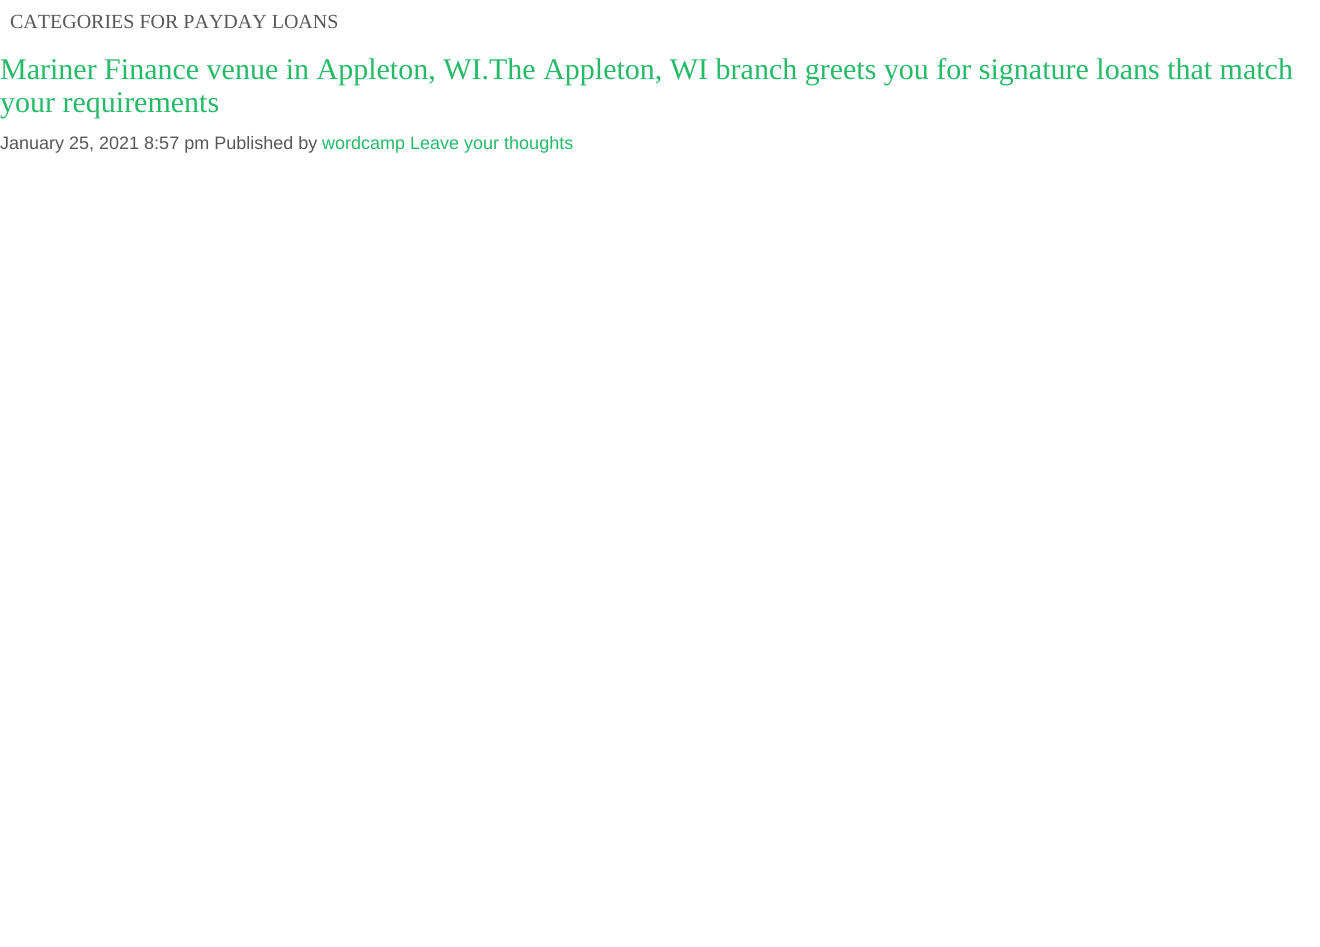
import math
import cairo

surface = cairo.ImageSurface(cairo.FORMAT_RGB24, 1320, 947)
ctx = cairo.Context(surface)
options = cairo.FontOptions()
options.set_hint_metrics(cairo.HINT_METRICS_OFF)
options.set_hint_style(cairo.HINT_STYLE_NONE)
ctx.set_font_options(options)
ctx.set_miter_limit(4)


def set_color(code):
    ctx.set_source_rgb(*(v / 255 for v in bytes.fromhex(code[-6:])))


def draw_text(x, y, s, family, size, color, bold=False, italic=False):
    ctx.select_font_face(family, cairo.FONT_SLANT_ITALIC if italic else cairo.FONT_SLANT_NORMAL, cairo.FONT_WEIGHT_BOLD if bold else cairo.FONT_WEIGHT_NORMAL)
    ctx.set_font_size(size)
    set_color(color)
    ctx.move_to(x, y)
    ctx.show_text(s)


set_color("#ffffff")
ctx.paint()
draw_text(10, 28, "CATEGORIES FOR PAYDAY LOANS", "Liberation Serif", 20, "#575757")
draw_text(0, 79, "Mariner Finance venue in Appleton, WI.The Appleton, WI branch greets you for signature loans that match", "Liberation Serif", 30, "#26b968")
draw_text(0, 112, "your requirements", "Liberation Serif", 30, "#26b968")
draw_text(0, 149, "January 25, 2021 8:57 pm Published by", "Liberation Sans", 18, "#575757")
draw_text(322, 149, "wordcamp Leave your thoughts", "Liberation Sans", 18, "#26b968")
surface.write_to_png("output.png")
